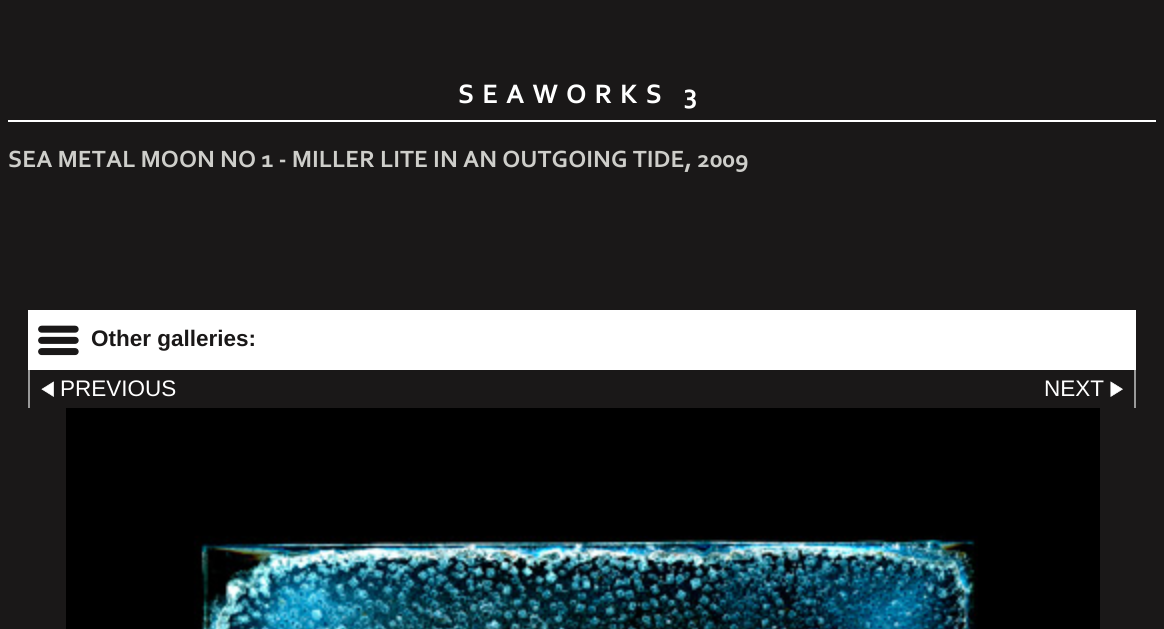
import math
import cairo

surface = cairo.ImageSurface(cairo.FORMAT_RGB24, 1164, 629)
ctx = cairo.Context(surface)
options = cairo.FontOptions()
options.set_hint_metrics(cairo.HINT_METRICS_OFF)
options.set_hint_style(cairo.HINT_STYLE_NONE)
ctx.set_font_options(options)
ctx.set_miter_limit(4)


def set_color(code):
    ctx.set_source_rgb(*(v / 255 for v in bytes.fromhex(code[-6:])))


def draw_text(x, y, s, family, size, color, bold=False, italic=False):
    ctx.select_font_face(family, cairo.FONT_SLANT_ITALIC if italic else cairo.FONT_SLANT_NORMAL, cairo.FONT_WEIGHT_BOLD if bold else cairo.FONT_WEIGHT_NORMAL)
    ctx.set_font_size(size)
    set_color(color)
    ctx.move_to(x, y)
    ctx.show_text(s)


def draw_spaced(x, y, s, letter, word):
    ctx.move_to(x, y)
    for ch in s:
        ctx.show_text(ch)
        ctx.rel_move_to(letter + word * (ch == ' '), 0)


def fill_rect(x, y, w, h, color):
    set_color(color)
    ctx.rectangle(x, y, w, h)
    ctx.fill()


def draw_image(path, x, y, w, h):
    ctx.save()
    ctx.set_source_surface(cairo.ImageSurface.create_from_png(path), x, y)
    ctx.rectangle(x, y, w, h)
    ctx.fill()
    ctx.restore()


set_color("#1a1818")
ctx.paint()
fill_rect(8, 120, 1148, 2, "#ffffff")
ctx.select_font_face("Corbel", cairo.FONT_SLANT_NORMAL, cairo.FONT_WEIGHT_BOLD)
ctx.set_font_size(28)
draw_spaced(458, 103, "SEAWORKS 3", 8, 0)
draw_text(8, 167, "SEA METAL MOON NO 1 - MILLER LITE IN AN OUTGOING TIDE, 2009", "Corbel", 24.65, "#cececa", bold=True)
fill_rect(28, 310, 1108, 60, "#ffffff")
draw_image("assets/img1.png", 38, 325, 41, 31)
draw_text(91, 346, "Other galleries:", "Liberation Sans", 22.5, "#1a1818", bold=True)
fill_rect(28, 370, 2, 38, "#999999")
draw_image("assets/img2.png", 41, 381, 13, 16)
draw_text(60, 396, "PREVIOUS", "Liberation Sans", 22.5, "#ffffff")
fill_rect(1134, 370, 2, 38, "#999999")
draw_text(1044, 396, "NEXT", "Liberation Sans", 22.5, "#ffffff")
draw_image("assets/img3.png", 1110, 381, 13, 16)
draw_image("assets/img4.png", 66, 408, 1034, 221)
surface.write_to_png("output.png")
